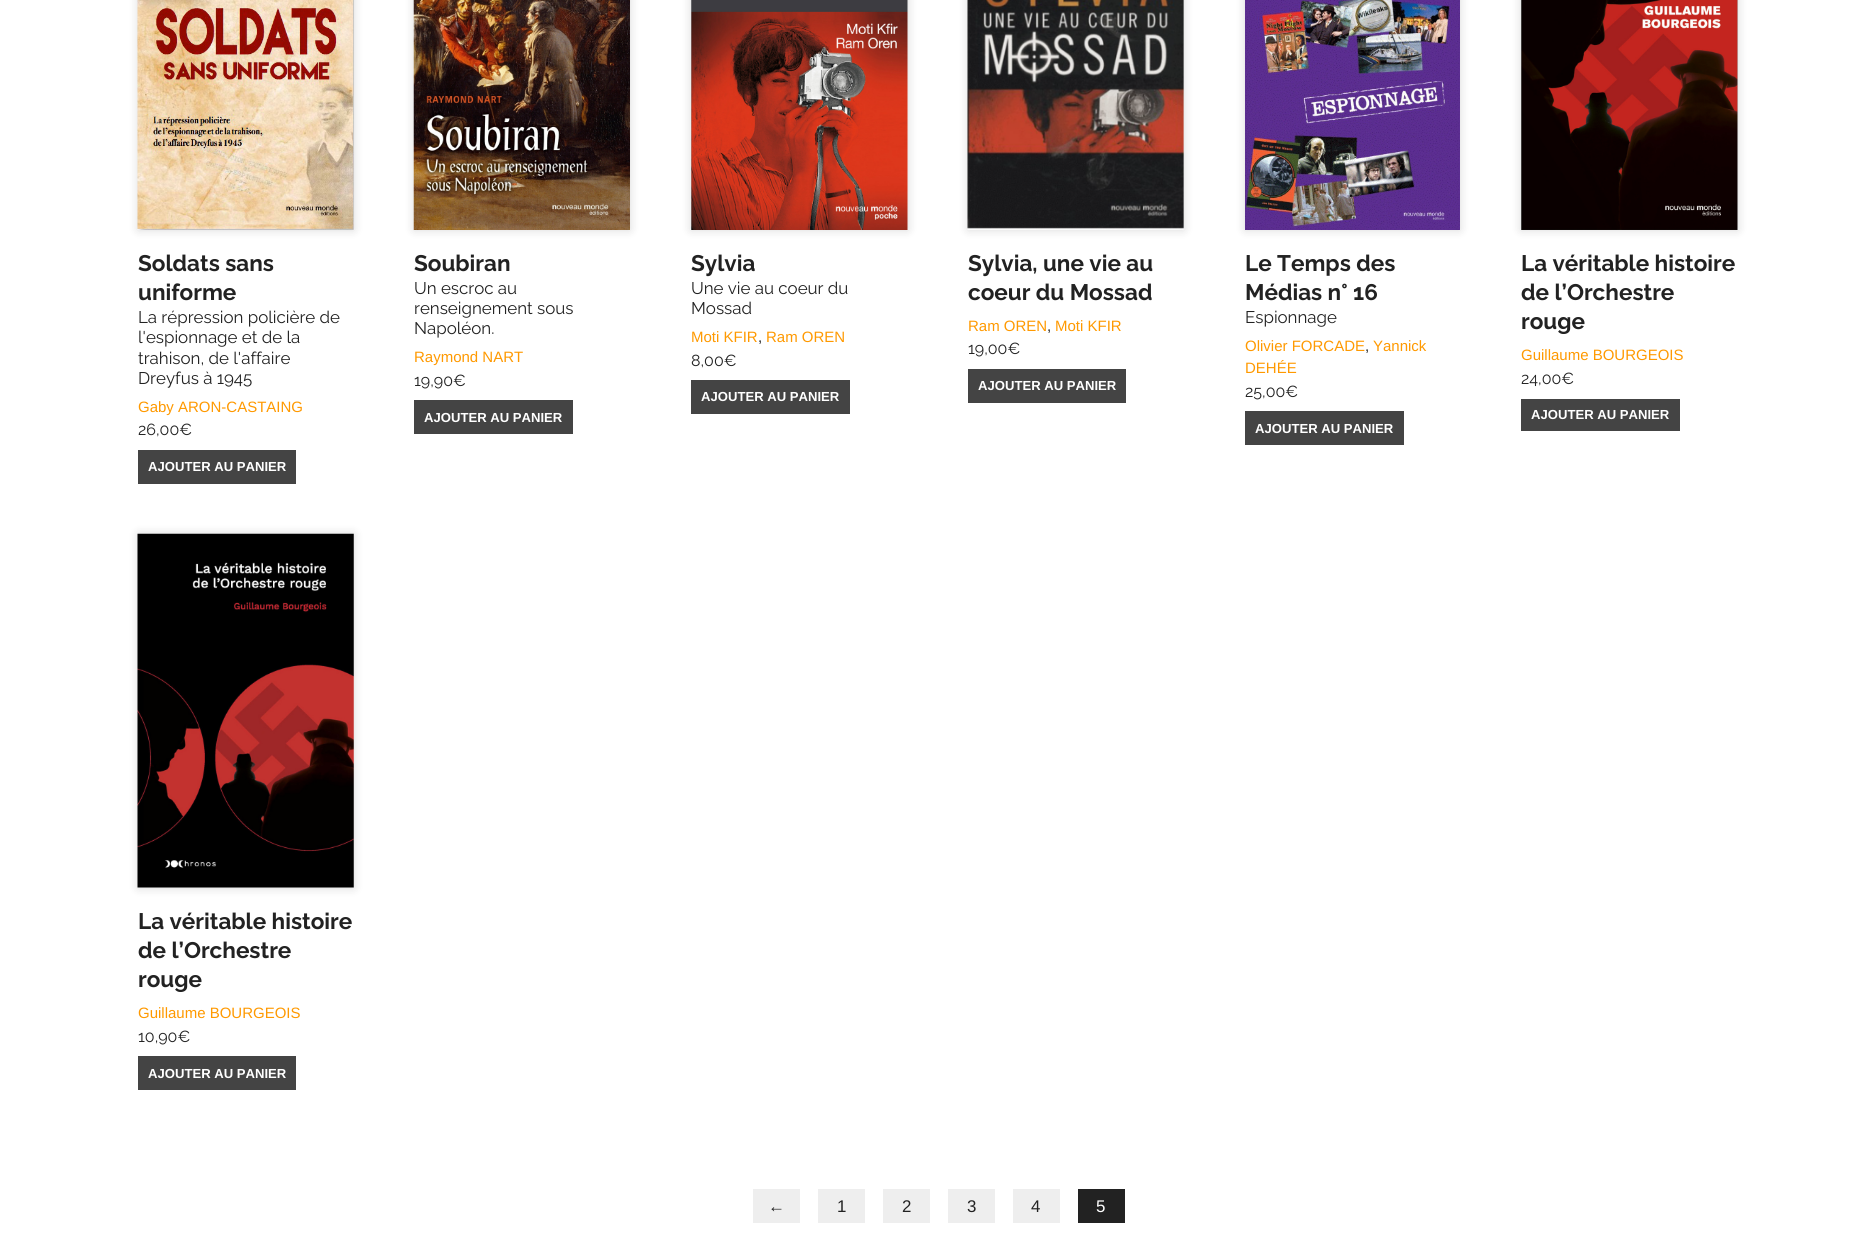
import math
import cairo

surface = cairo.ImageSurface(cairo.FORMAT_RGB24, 1875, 1233)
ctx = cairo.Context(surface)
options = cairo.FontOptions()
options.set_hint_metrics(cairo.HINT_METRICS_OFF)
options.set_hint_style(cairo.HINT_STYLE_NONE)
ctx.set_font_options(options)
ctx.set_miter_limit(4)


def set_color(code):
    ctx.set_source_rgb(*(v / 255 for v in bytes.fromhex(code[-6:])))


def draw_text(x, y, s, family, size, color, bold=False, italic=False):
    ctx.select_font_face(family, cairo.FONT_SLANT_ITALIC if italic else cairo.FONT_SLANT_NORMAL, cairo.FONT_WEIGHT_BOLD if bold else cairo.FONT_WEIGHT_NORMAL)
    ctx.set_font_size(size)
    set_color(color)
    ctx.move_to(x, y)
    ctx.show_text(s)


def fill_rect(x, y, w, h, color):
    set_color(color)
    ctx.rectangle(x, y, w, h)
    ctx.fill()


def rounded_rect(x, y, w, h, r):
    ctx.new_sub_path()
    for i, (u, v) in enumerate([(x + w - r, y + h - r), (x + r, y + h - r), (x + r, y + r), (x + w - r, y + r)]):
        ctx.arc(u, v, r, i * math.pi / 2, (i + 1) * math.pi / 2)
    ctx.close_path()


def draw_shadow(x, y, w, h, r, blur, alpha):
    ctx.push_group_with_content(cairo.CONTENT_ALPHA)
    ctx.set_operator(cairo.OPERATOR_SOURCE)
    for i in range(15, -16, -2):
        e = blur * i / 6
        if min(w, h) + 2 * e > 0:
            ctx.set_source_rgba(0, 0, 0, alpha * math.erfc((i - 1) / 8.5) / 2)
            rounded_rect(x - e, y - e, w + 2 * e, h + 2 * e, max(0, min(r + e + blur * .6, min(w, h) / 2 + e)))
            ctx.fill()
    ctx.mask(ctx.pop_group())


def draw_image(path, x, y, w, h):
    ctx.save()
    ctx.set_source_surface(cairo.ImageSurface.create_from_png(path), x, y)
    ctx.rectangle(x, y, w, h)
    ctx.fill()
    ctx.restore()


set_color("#ffffff")
ctx.paint()
set_color("#000000")
draw_shadow(138, -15, 216, 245, 0, 5, 0.15)
draw_image("assets/img1.png", 137, 0, 217, 230)
draw_text(138, 271, "Soldats sans", "Raleway", 22.5, "#222222", bold=True)
draw_text(138, 300, "uniforme", "Raleway", 22.5, "#222222", bold=True)
draw_text(138, 323, "La répression policière de", "Raleway", 16.9, "#222222")
draw_text(138, 343, "l'espionnage et de la", "Raleway", 16.9, "#222222")
draw_text(138, 364, "trahison, de l'affaire", "Raleway", 16.9, "#222222")
draw_text(138, 384, "Dreyfus à 1945", "Raleway", 16.9, "#222222")
draw_text(138, 412, "Gaby ARON-CASTAING", "Liberation Sans", 15, "#ff9900")
draw_text(138, 435, "26,00€", "Raleway", 16, "#222222")
fill_rect(138, 450, 158, 34, "#444444")
draw_text(148, 471, "AJOUTER AU PANIER", "Liberation Sans", 13.1, "#ffffff", bold=True)
set_color("#000000")
draw_shadow(414, -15, 216, 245, 0, 5, 0.15)
draw_image("assets/img2.png", 413, 0, 217, 230)
draw_text(414, 271, "Soubiran", "Raleway", 22.5, "#222222", bold=True)
draw_text(414, 294, "Un escroc au", "Raleway", 16.9, "#222222")
draw_text(414, 314, "renseignement sous", "Raleway", 16.9, "#222222")
draw_text(414, 334, "Napoléon.", "Raleway", 16.9, "#222222")
draw_text(414, 362, "Raymond NART", "Liberation Sans", 15, "#ff9900")
draw_text(414, 386, "19,90€", "Raleway", 16, "#222222")
fill_rect(414, 400, 159, 34, "#444444")
draw_text(424, 422, "AJOUTER AU PANIER", "Liberation Sans", 13.1, "#ffffff", bold=True)
set_color("#000000")
draw_shadow(691, -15, 217, 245, 0, 5, 0.15)
draw_image("assets/img3.png", 691, 0, 217, 230)
draw_text(691, 271, "Sylvia", "Raleway", 22.5, "#222222", bold=True)
draw_text(691, 294, "Une vie au coeur du", "Raleway", 16.9, "#222222")
draw_text(691, 314, "Mossad", "Raleway", 16.9, "#222222")
draw_text(691, 342, "Moti KFIR", "Liberation Sans", 15, "#ff9900")
draw_text(758, 342, ",", "Liberation Sans", 15, "#222222")
draw_text(766, 342, "Ram OREN", "Liberation Sans", 15, "#ff9900")
draw_text(691, 366, "8,00€", "Raleway", 16, "#222222")
fill_rect(691, 380, 159, 34, "#444444")
draw_text(701, 401, "AJOUTER AU PANIER", "Liberation Sans", 13.1, "#ffffff", bold=True)
set_color("#000000")
draw_shadow(968, -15, 216, 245, 0, 5, 0.15)
draw_image("assets/img4.png", 967, 0, 217, 230)
draw_text(968, 271, "Sylvia, une vie au", "Raleway", 22.5, "#222222", bold=True)
draw_text(968, 300, "coeur du Mossad", "Raleway", 22.5, "#222222", bold=True)
draw_text(968, 331, "Ram OREN", "Liberation Sans", 15, "#ff9900")
draw_text(1047, 331, ",", "Liberation Sans", 15, "#222222")
draw_text(1055, 331, "Moti KFIR", "Liberation Sans", 15, "#ff9900")
draw_text(968, 354, "19,00€", "Raleway", 16, "#222222")
fill_rect(968, 369, 158, 34, "#444444")
draw_text(978, 390, "AJOUTER AU PANIER", "Liberation Sans", 13.1, "#ffffff", bold=True)
set_color("#000000")
draw_shadow(1245, -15, 215, 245, 0, 5, 0.15)
draw_image("assets/img5.png", 1245, 0, 215, 230)
draw_text(1245, 271, "Le Temps des", "Raleway", 22.5, "#222222", bold=True)
draw_text(1245, 300, "Médias n° 16", "Raleway", 22.5, "#222222", bold=True)
draw_text(1245, 323, "Espionnage", "Raleway", 16.9, "#222222")
draw_text(1245, 351, "Olivier FORCADE", "Liberation Sans", 15, "#ff9900")
draw_text(1365, 351, ",", "Liberation Sans", 15, "#222222")
draw_text(1373, 351, "Yannick", "Liberation Sans", 15, "#ff9900")
draw_text(1245, 373, "DEHÉE", "Liberation Sans", 15, "#ff9900")
draw_text(1245, 397, "25,00€", "Raleway", 16, "#222222")
fill_rect(1245, 411, 159, 34, "#444444")
draw_text(1255, 433, "AJOUTER AU PANIER", "Liberation Sans", 13.1, "#ffffff", bold=True)
set_color("#000000")
draw_shadow(1521, -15, 217, 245, 0, 5, 0.15)
draw_image("assets/img6.png", 1521, 0, 217, 230)
draw_text(1521, 271, "La véritable histoire", "Raleway", 22.5, "#222222", bold=True)
draw_text(1521, 300, "de l’Orchestre", "Raleway", 22.5, "#222222", bold=True)
draw_text(1521, 329, "rouge", "Raleway", 22.5, "#222222", bold=True)
draw_text(1521, 360, "Guillaume BOURGEOIS", "Liberation Sans", 15, "#ff9900")
draw_text(1521, 384, "24,00€", "Raleway", 16, "#222222")
fill_rect(1521, 399, 159, 32, "#444444")
draw_text(1531, 419, "AJOUTER AU PANIER", "Liberation Sans", 13.1, "#ffffff", bold=True)
set_color("#000000")
draw_shadow(138, 534, 216, 354, 0, 5, 0.15)
draw_image("assets/img7.png", 137, 533, 217, 355)
draw_text(138, 929, "La véritable histoire", "Raleway", 22.5, "#222222", bold=True)
draw_text(138, 958, "de l’Orchestre", "Raleway", 22.5, "#222222", bold=True)
draw_text(138, 987, "rouge", "Raleway", 22.5, "#222222", bold=True)
draw_text(138, 1018, "Guillaume BOURGEOIS", "Liberation Sans", 15, "#ff9900")
draw_text(138, 1042, "10,90€", "Raleway", 16, "#222222")
fill_rect(138, 1056, 158, 34, "#444444")
draw_text(148, 1078, "AJOUTER AU PANIER", "Liberation Sans", 13.1, "#ffffff", bold=True)
fill_rect(753, 1189, 47, 34, "#eeeeee")
draw_text(768, 1212, "←", "Liberation Sans", 16.9, "#222222")
fill_rect(818, 1189, 47, 34, "#eeeeee")
draw_text(837, 1212, "1", "Liberation Sans", 16.9, "#222222")
fill_rect(883, 1189, 47, 34, "#eeeeee")
draw_text(902, 1212, "2", "Liberation Sans", 16.9, "#222222")
fill_rect(948, 1189, 47, 34, "#eeeeee")
draw_text(967, 1212, "3", "Liberation Sans", 16.9, "#222222")
fill_rect(1013, 1189, 47, 34, "#eeeeee")
draw_text(1031, 1212, "4", "Liberation Sans", 16.9, "#222222")
fill_rect(1078, 1189, 47, 34, "#222222")
draw_text(1096, 1212, "5", "Liberation Sans", 16.9, "#ffffff")
surface.write_to_png("output.png")
